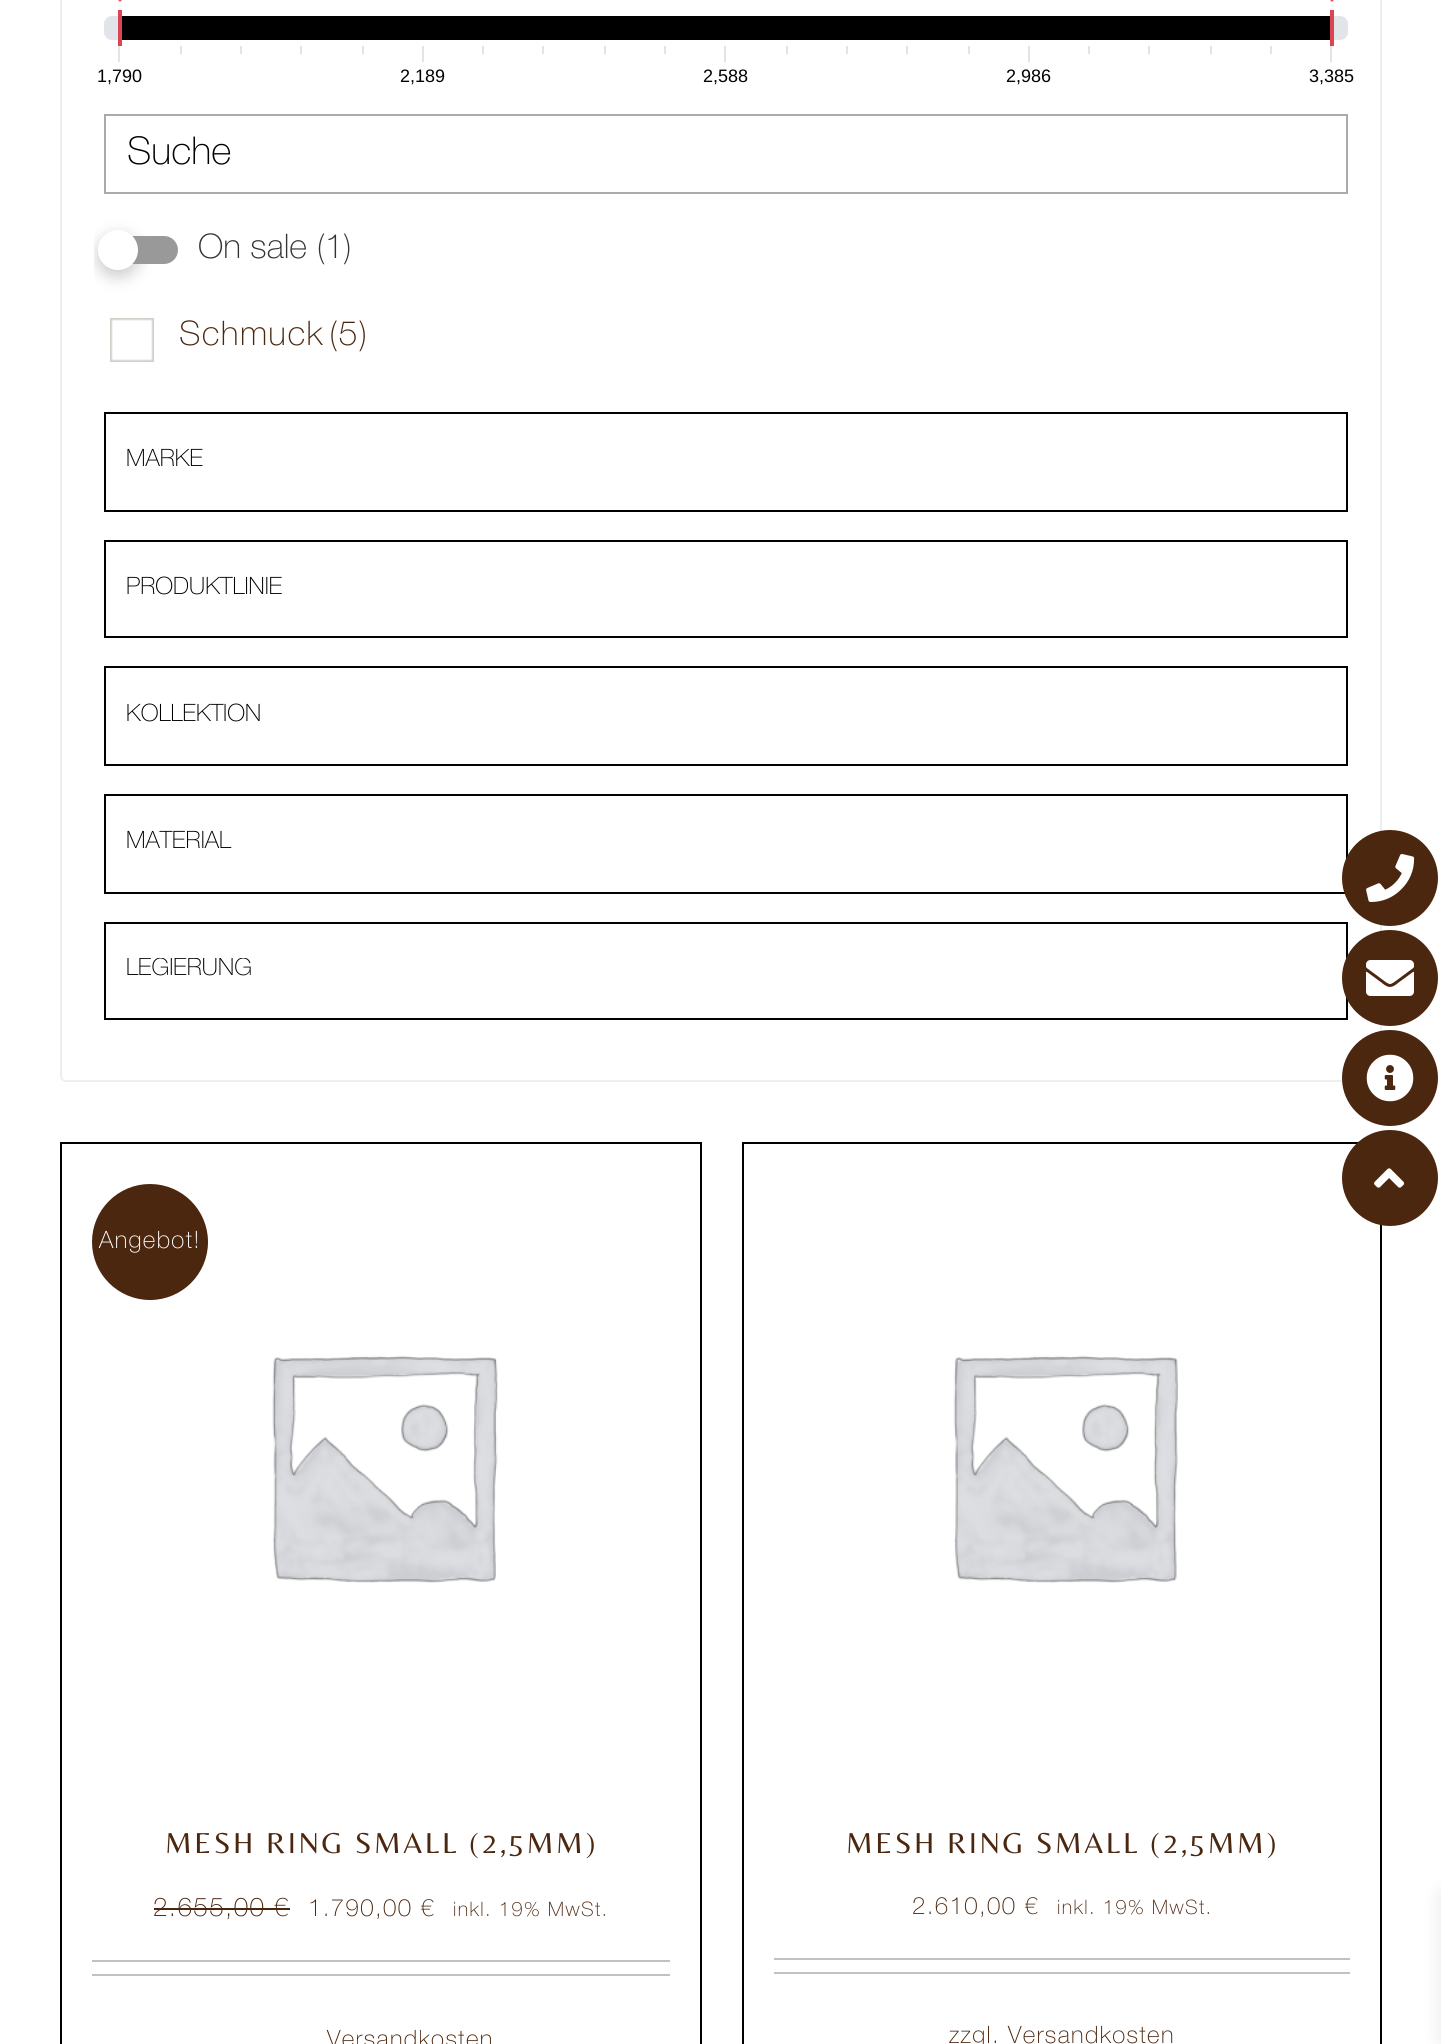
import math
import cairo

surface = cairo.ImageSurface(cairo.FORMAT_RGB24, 1441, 2044)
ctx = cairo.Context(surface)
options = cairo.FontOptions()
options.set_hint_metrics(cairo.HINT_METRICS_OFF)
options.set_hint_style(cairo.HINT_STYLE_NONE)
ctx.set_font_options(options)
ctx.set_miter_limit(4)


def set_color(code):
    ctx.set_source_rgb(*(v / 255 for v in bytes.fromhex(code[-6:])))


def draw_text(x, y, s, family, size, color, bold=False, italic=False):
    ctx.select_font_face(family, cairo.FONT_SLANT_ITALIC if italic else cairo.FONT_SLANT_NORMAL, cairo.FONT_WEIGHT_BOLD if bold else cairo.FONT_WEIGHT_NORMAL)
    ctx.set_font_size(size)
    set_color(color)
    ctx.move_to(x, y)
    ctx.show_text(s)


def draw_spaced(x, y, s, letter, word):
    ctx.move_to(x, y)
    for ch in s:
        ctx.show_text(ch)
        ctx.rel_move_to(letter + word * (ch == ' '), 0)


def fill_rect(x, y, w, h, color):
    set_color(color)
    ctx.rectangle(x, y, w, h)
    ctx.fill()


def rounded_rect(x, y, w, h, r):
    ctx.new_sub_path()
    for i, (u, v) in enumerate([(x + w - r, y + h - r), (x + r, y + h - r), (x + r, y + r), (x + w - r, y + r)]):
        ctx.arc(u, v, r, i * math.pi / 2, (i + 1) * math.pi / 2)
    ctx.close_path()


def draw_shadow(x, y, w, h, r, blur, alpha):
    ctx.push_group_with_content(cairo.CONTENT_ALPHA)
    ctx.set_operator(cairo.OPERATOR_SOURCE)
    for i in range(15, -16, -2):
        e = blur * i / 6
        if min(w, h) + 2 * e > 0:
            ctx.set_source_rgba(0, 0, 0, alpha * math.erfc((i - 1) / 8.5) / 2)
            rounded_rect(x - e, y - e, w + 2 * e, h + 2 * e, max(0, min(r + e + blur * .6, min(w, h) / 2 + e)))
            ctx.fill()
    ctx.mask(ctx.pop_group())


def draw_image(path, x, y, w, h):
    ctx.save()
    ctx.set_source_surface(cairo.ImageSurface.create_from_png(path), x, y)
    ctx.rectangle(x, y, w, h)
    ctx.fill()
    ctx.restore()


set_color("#ffffff")
ctx.paint()
rounded_rect(61, -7, 1320, 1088, 5)
set_color("#eeeeee")
ctx.stroke()
set_color("#ed5565")
ctx.new_path()
ctx.move_to(114, -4)
ctx.line_to(126, -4)
ctx.line_to(120, 2)
ctx.close_path()
ctx.fill()
ctx.new_path()
ctx.move_to(1326, -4)
ctx.line_to(1338, -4)
ctx.line_to(1332, 2)
ctx.close_path()
ctx.fill()
set_color("#e1e4e9")
rounded_rect(104, 16, 1244, 24, 8)
ctx.fill()
fill_rect(118, 10, 4, 36, "#da4453")
fill_rect(122, 16, 1208, 24, "#000000")
fill_rect(1330, 10, 4, 36, "#da4453")
fill_rect(118, 46, 2, 16, "#e1e4e9")
fill_rect(180, 46, 2, 8, "#e1e4e9")
fill_rect(240, 46, 2, 8, "#e1e4e9")
fill_rect(300, 46, 2, 8, "#e1e4e9")
fill_rect(362, 46, 2, 8, "#e1e4e9")
fill_rect(422, 46, 2, 16, "#e1e4e9")
fill_rect(482, 46, 2, 8, "#e1e4e9")
fill_rect(542, 46, 2, 8, "#e1e4e9")
fill_rect(604, 46, 2, 8, "#e1e4e9")
fill_rect(664, 46, 2, 8, "#e1e4e9")
fill_rect(724, 46, 2, 16, "#e1e4e9")
fill_rect(786, 46, 2, 8, "#e1e4e9")
fill_rect(846, 46, 2, 8, "#e1e4e9")
fill_rect(906, 46, 2, 8, "#e1e4e9")
fill_rect(968, 46, 2, 8, "#e1e4e9")
fill_rect(1028, 46, 2, 16, "#e1e4e9")
fill_rect(1088, 46, 2, 8, "#e1e4e9")
fill_rect(1148, 46, 2, 8, "#e1e4e9")
fill_rect(1210, 46, 2, 8, "#e1e4e9")
fill_rect(1270, 46, 2, 8, "#e1e4e9")
fill_rect(1330, 46, 2, 16, "#e1e4e9")
draw_text(97, 82, "1,790", "Liberation Sans", 18, "#000000")
draw_text(400, 82, "2,189", "Liberation Sans", 18, "#000000")
draw_text(703, 82, "2,588", "Liberation Sans", 18, "#000000")
draw_text(1006, 82, "2,986", "Liberation Sans", 18, "#000000")
draw_text(1309, 82, "3,385", "Liberation Sans", 18, "#000000")
ctx.rectangle(105, 115, 1242, 78)
set_color("#aaaaaa")
ctx.stroke()
draw_text(127, 164, "Suche", "Helvetica Neue Thin", 38.5, "#000000")
set_color("#9a9999")
rounded_rect(110, 236, 68, 28, 14)
ctx.fill()
ctx.save()
ctx.rectangle(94, 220, 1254, 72)
ctx.clip()
set_color("#9a9999")
draw_shadow(98, 236, 40, 40, 20, 8, 0.5)
ctx.restore()
set_color("#ffffff")
ctx.arc(118, 250, 20, 0, 2 * math.pi)
ctx.fill()
draw_text(198, 258, "On sale (1)", "Helvetica Neue Thin", 34, "#333333")
draw_image("assets/img1.png", 110, 318, 44, 44)
set_color("#4c270f")
draw_spaced(179, 345, "Schmuck", 1.4, 0)
draw_spaced(329, 345, "(5)", 1.4, 0)
ctx.rectangle(105, 413, 1242, 98)
set_color("#000000")
ctx.stroke()
draw_text(126, 466, "MARKE", "Helvetica Neue Thin", 24, "#000000")
ctx.rectangle(105, 541, 1242, 96)
ctx.stroke()
draw_text(126, 594, "PRODUKTLINIE", "Helvetica Neue Thin", 24, "#000000")
ctx.rectangle(105, 667, 1242, 98)
ctx.stroke()
draw_text(126, 721, "KOLLEKTION", "Helvetica Neue Thin", 24, "#000000")
ctx.rectangle(105, 795, 1242, 98)
ctx.stroke()
draw_text(126, 848, "MATERIAL", "Helvetica Neue Thin", 24, "#000000")
ctx.rectangle(105, 923, 1242, 96)
ctx.stroke()
ctx.save()
ctx.rectangle(116, 958, 1230, 24)
ctx.clip()
draw_text(126, 975, "LEGIERUNG", "Helvetica Neue Thin", 24, "#000000")
ctx.restore()
fill_rect(60, 1142, 642, 2, "#000000")
fill_rect(700, 1142, 2, 902, "#000000")
fill_rect(60, 1142, 2, 902, "#000000")
set_color("#4c270f")
ctx.new_path()
ctx.arc(150, 1242, 58, 0, 2 * math.pi)
ctx.fill()
set_color("#ffffff")
draw_spaced(99, 1248, "Angebot!", 1.4, 0)
draw_image("assets/img2.png", 272, 1355, 226, 228)
ctx.select_font_face("Belleza")
ctx.set_font_size(30)
set_color("#4c270f")
draw_spaced(165, 1853, "MESH RING SMALL (2,5MM)", 2.6, 0)
ctx.select_font_face("Helvetica Neue Thin")
ctx.set_font_size(26)
draw_spaced(153, 1916, "2.655,00 €", 1.4, 0)
fill_rect(154, 1908, 136, 2, "#4c270f")
ctx.set_font_size(24)
draw_spaced(308, 1916, "1.790,00 €", 1.4, 0)
ctx.set_font_size(20)
draw_spaced(453, 1916, "inkl. 19% MwSt.", 1.4, 0)
fill_rect(92, 1960, 578, 2, "#c1c1c1")
fill_rect(92, 1974, 578, 2, "#c1c1c1")
ctx.set_font_size(24)
set_color("#4c270f")
draw_spaced(327, 2047, "Versandkosten", 1.4, 0)
fill_rect(742, 1142, 617, 2, "#000000")
fill_rect(1380, 1224, 2, 820, "#000000")
fill_rect(742, 1142, 2, 902, "#000000")
draw_image("assets/img3.png", 953, 1355, 226, 228)
ctx.select_font_face("Belleza")
ctx.set_font_size(30)
set_color("#4c270f")
draw_spaced(846, 1853, "MESH RING SMALL (2,5MM)", 2.6, 0)
ctx.select_font_face("Helvetica Neue Thin")
ctx.set_font_size(24)
draw_spaced(912, 1914, "2.610,00 €", 1.4, 0)
ctx.set_font_size(20)
draw_spaced(1057, 1914, "inkl. 19% MwSt.", 1.4, 0)
fill_rect(774, 1958, 576, 2, "#c1c1c1")
fill_rect(774, 1972, 576, 2, "#c1c1c1")
ctx.set_font_size(24)
set_color("#4c270f")
draw_spaced(949, 2043, "zzgl. Versandkosten", 1.4, 0)
ctx.new_path()
ctx.arc(1390, 878, 48, 0, 2 * math.pi)
ctx.fill()
draw_image("assets/img4.png", 1366, 854, 49, 48)
ctx.arc(1390, 978, 48, 0, 2 * math.pi)
ctx.fill()
draw_image("assets/img5.png", 1366, 960, 48, 36)
ctx.arc(1390, 1078, 48, 0, 2 * math.pi)
ctx.fill()
draw_image("assets/img6.png", 1366, 1054, 48, 48)
ctx.arc(1390, 1178, 48, 0, 2 * math.pi)
ctx.fill()
draw_image("assets/img7.png", 1374, 1168, 31, 20)
set_color("#000000")
draw_shadow(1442, 1894, 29, 148, 0, 10, 0.1)
surface.write_to_png("output.png")
